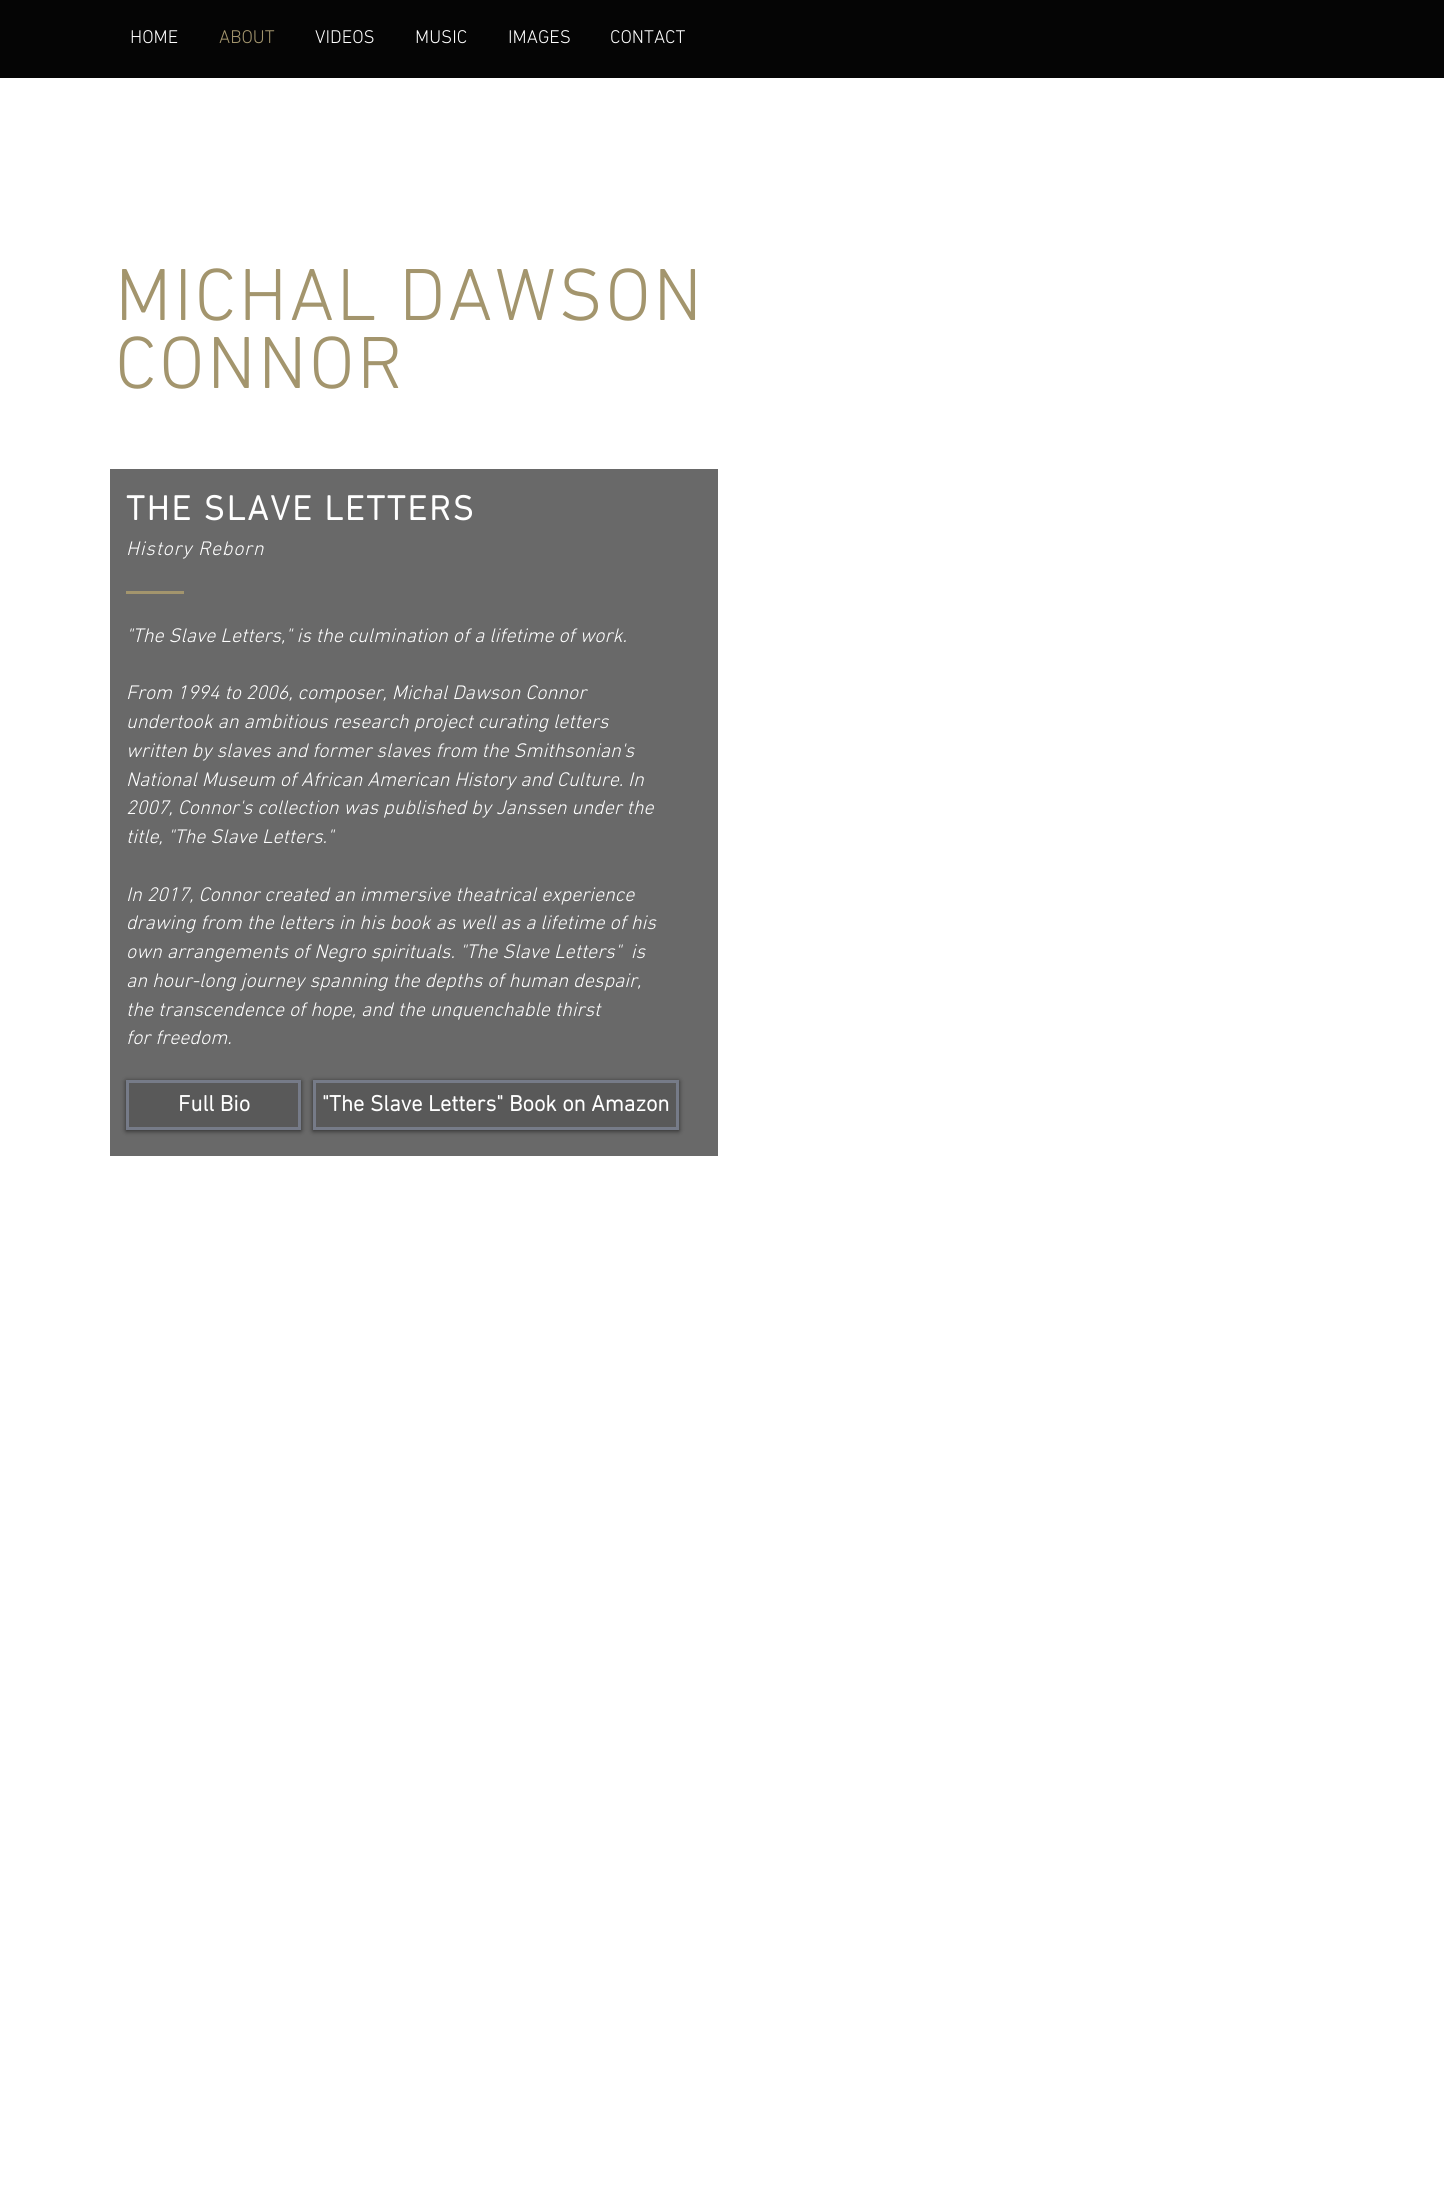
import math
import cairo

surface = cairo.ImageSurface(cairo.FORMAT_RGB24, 1444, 2185)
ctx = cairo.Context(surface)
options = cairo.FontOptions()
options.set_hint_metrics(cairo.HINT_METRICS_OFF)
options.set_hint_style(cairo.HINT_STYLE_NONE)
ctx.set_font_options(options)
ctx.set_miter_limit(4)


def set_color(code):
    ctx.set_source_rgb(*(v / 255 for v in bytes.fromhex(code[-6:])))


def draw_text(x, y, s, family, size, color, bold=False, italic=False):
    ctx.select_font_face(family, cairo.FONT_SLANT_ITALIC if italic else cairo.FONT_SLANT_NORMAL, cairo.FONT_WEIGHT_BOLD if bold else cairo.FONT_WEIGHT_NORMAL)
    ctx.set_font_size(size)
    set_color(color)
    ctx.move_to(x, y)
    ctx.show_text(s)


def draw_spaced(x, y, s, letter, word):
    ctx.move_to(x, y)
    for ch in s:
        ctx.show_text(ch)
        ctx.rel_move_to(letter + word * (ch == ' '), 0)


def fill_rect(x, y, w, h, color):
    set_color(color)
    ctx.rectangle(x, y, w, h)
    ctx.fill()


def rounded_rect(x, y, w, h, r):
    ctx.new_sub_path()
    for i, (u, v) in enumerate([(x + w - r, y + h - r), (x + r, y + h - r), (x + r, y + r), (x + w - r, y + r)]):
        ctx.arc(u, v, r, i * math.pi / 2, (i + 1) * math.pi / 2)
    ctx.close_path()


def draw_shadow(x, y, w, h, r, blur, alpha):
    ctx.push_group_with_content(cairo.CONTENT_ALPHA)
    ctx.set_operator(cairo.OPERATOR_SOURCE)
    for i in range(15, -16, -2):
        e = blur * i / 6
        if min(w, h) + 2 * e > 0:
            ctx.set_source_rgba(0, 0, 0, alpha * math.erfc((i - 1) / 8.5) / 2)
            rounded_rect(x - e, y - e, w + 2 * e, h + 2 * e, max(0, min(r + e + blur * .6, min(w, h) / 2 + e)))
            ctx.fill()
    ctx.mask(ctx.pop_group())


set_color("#ffffff")
ctx.paint()
fill_rect(0, 0, 1444, 78, "#050505")
draw_text(130, 43, "HOME", "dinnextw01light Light", 18.75, "#ffffff")
draw_text(219, 43, "ABOUT", "dinnextw01light Light", 18.75, "#a3956d")
draw_text(315, 43, "VIDEOS", "dinnextw01light Light", 18.75, "#ffffff")
draw_text(415, 43, "MUSIC", "dinnextw01light Light", 18.75, "#ffffff")
draw_text(508, 43, "IMAGES", "dinnextw01light Light", 18.75, "#ffffff")
draw_text(610, 43, "CONTACT", "dinnextw01light Light", 18.75, "#ffffff")
ctx.set_font_size(75)
set_color("#a3956d")
draw_spaced(115, 320, "MICHAL DAWSON", 2.25, 0)
draw_spaced(115, 388, "CONNOR", 2.25, 0)
fill_rect(110, 469, 608, 687, "#696969")
ctx.select_font_face("dinnextw01light", cairo.FONT_SLANT_NORMAL, cairo.FONT_WEIGHT_BOLD)
ctx.set_font_size(35)
set_color("#ffffff")
draw_spaced(126, 520, "THE SLAVE LETTERS", 2.1, 0)
ctx.select_font_face("dinnextw01light Light", cairo.FONT_SLANT_ITALIC)
ctx.set_font_size(20)
draw_spaced(126, 555, "History Reborn", 0.75, 0)
fill_rect(126, 591, 58, 3, "#a3956d")
draw_text(126, 642, "\"The Slave Letters,\" is the culmination of a lifetime of work.", "dinnextw01light Light", 20, "#ffffff", italic=True)
draw_text(126, 699, "From 1994 to 2006, composer, Michal Dawson Connor", "dinnextw01light Light", 20, "#ffffff", italic=True)
draw_text(126, 728, "undertook an ambitious research project curating letters", "dinnextw01light Light", 20, "#ffffff", italic=True)
draw_text(126, 757, "written by slaves and former slaves from the Smithsonian's", "dinnextw01light Light", 20, "#ffffff", italic=True)
draw_text(126, 786, "National Museum of African American History and Culture. In", "dinnextw01light Light", 20, "#ffffff", italic=True)
draw_text(126, 814, "2007, Connor's collection was published by Janssen under the", "dinnextw01light Light", 20, "#ffffff", italic=True)
draw_text(126, 843, "title, \"The Slave Letters.\"", "dinnextw01light Light", 20, "#ffffff", italic=True)
draw_text(126, 901, "In 2017, Connor created an immersive theatrical experience", "dinnextw01light Light", 20, "#ffffff", italic=True)
draw_text(126, 929, "drawing from the letters in his book as well as a lifetime of his", "dinnextw01light Light", 20, "#ffffff", italic=True)
draw_text(126, 958, "own arrangements of Negro spirituals. \"The Slave Letters\"  is", "dinnextw01light Light", 20, "#ffffff", italic=True)
draw_text(126, 987, "an hour-long journey spanning the depths of human despair,", "dinnextw01light Light", 20, "#ffffff", italic=True)
draw_text(126, 1016, "the transcendence of hope, and the unquenchable thirst", "dinnextw01light Light", 20, "#ffffff", italic=True)
draw_text(126, 1044, "for freedom.", "dinnextw01light Light", 20, "#ffffff", italic=True)
ctx.save()
ctx.set_fill_rule(cairo.FILL_RULE_EVEN_ODD)
ctx.new_path()
ctx.move_to(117, 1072)
ctx.line_to(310, 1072)
ctx.line_to(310, 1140)
ctx.line_to(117, 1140)
ctx.close_path()
ctx.move_to(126, 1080)
ctx.line_to(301, 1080)
ctx.line_to(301, 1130)
ctx.line_to(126, 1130)
ctx.close_path()
ctx.clip()
set_color("#000000")
draw_shadow(126, 1081, 175, 50, 0, 2.5, 0.6)
ctx.restore()
ctx.set_source_rgba(0.333, 0.333, 0.333, 0.8)
ctx.rectangle(127.5, 1081.5, 172, 47)
ctx.fill_preserve()
set_color("#767b88")
ctx.set_line_width(3)
ctx.stroke()
draw_text(178, 1111, "Full Bio", "dinnextw01light", 22.5, "#ffffff", bold=True)
ctx.save()
ctx.set_fill_rule(cairo.FILL_RULE_EVEN_ODD)
ctx.new_path()
ctx.move_to(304, 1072)
ctx.line_to(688, 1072)
ctx.line_to(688, 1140)
ctx.line_to(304, 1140)
ctx.close_path()
ctx.move_to(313, 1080)
ctx.line_to(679, 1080)
ctx.line_to(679, 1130)
ctx.line_to(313, 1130)
ctx.close_path()
ctx.clip()
set_color("#000000")
draw_shadow(313, 1081, 366, 50, 0, 2.5, 0.6)
ctx.restore()
ctx.set_source_rgba(0.333, 0.333, 0.333, 0.8)
ctx.rectangle(314.5, 1081.5, 363, 47)
ctx.fill_preserve()
set_color("#767b88")
ctx.stroke()
draw_text(322, 1111, "\"The Slave Letters\" Book on Amazon", "dinnextw01light", 22.5, "#ffffff", bold=True)
surface.write_to_png("output.png")
